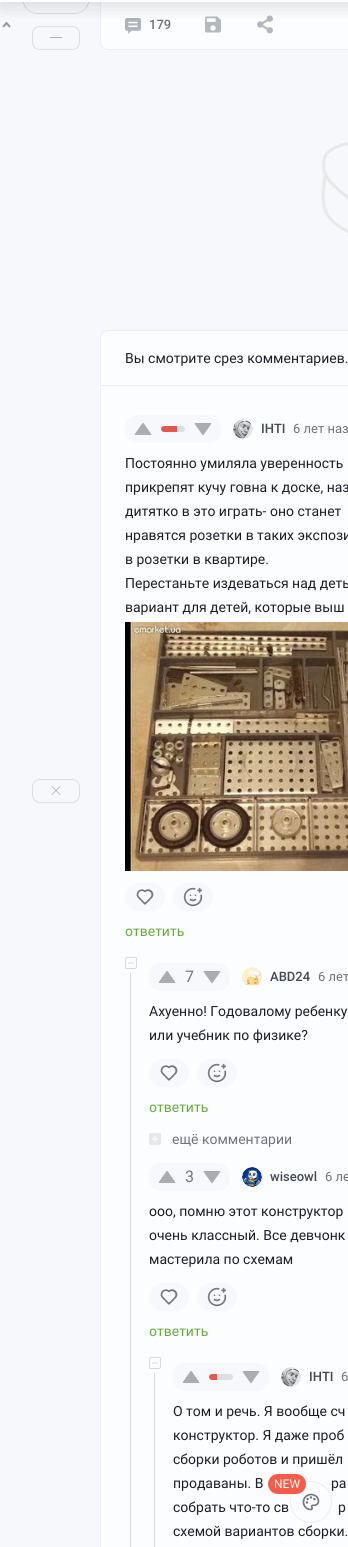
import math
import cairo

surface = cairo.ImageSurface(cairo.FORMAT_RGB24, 348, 1547)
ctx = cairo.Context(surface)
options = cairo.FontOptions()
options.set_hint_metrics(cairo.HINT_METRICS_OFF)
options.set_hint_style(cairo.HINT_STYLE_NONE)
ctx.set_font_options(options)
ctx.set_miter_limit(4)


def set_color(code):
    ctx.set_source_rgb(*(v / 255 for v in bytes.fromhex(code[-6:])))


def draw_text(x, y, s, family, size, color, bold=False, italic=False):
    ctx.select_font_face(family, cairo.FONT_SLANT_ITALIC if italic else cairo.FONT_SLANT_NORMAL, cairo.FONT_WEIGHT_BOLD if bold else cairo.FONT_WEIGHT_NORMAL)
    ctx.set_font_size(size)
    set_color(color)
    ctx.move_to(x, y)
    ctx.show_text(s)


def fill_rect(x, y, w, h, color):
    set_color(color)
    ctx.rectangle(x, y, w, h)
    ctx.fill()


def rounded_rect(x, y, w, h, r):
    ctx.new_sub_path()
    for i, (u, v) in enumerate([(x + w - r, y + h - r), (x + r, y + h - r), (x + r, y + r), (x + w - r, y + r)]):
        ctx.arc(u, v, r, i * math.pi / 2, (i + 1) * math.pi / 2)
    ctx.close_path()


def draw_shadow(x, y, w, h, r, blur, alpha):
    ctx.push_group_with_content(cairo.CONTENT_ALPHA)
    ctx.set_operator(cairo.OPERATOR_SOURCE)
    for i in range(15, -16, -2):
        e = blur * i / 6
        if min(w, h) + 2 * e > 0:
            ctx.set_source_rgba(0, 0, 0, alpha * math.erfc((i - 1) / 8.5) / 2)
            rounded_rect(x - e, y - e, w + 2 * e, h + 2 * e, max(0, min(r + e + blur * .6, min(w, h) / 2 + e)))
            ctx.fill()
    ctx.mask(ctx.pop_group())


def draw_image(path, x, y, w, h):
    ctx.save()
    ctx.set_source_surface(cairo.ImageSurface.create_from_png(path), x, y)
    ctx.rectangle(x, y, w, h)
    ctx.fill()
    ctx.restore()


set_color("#f7f8fc")
ctx.paint()
rounded_rect(22.5, -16.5, 67, 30, 15.5)
set_color("#dcdee5")
ctx.set_line_width(1)
ctx.stroke()
rounded_rect(32.5, 26.5, 47, 23, 7.5)
ctx.stroke()
set_color("#fcfdff")
rounded_rect(100.5, -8.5, 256, 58, 7.5)
ctx.fill_preserve()
set_color("#ebedf2")
ctx.stroke()
draw_image("assets/img1.png", 125, 18, 16, 16)
draw_image("assets/img2.png", 205, 16, 16, 17)
draw_image("assets/img3.png", 257, 15, 16, 19)
set_color("#000000")
draw_shadow(0, -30, 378, 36, 0, 10, 0.08)
set_color("#292a2e")
draw_shadow(0, -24, 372, 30, 0, 8, 0.08)
fill_rect(0, 0, 348, 2, "#fcfdff")
ctx.new_path()
ctx.move_to(3, 27)
ctx.line_to(6.5, 23)
ctx.line_to(10, 27)
set_color("#979797")
ctx.set_line_width(2)
ctx.stroke()
fill_rect(50, 37, 12, 1, "#aaacb2")
draw_text(149, 29, "179", "Roboto Medium", 13, "#70737b")
draw_image("assets/img4.png", 321, 142, 27, 91)
set_color("#fcfdff")
ctx.new_path()
ctx.move_to(108, 330.5)
ctx.line_to(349, 330.5)
ctx.curve_to(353, 330.5, 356.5, 334, 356.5, 338)
ctx.line_to(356.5, 385.5)
ctx.line_to(100.5, 385.5)
ctx.line_to(100.5, 338)
ctx.curve_to(100.5, 334, 104, 330.5, 108, 330.5)
ctx.close_path()
ctx.fill_preserve()
set_color("#ebedf2")
ctx.set_line_width(1)
ctx.stroke()
draw_text(125, 363, "Вы смотрите срез комментариев.", "Roboto", 14, "#1b1e24")
rounded_rect(32.5, 779.5, 47, 23, 7.5)
set_color("#dcdee5")
ctx.stroke()
set_color("#aaacb2")
ctx.new_path()
ctx.move_to(52, 786)
ctx.line_to(60.5, 794.5)
ctx.line_to(60, 795)
ctx.line_to(51.5, 786.5)
ctx.close_path()
ctx.fill()
ctx.new_path()
ctx.move_to(51.5, 794.5)
ctx.line_to(60, 786)
ctx.line_to(60.5, 786.5)
ctx.line_to(52, 795)
ctx.close_path()
ctx.fill()
fill_rect(100, 386, 248, 1161, "#fcfdff")
set_color("#ebedf2")
ctx.new_path()
ctx.move_to(100, 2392)
ctx.line_to(100, 386)
ctx.line_to(101, 387)
ctx.line_to(101, 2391)
ctx.close_path()
ctx.fill()
set_color("#f7f8fc")
rounded_rect(125, 415, 96, 28, 12)
ctx.fill()
draw_image("assets/img5.png", 134, 423, 18, 12)
set_color("#dcdee5")
rounded_rect(161, 426, 24, 6, 3)
ctx.fill()
set_color("#e5594c")
ctx.new_path()
ctx.move_to(164, 426)
ctx.line_to(177, 426)
ctx.line_to(177, 432)
ctx.line_to(164, 432)
ctx.curve_to(162.5, 432, 161, 430.5, 161, 429)
ctx.curve_to(161, 427.5, 162.5, 426, 164, 426)
ctx.close_path()
ctx.fill()
draw_image("assets/img6.png", 194, 423, 18, 12)
set_color("#f9f9fb")
ctx.arc(243, 429, 10, 0, 2 * math.pi)
ctx.fill()
draw_image("assets/img7.png", 233, 419, 20, 20)
draw_text(261, 433, "IHTI", "Roboto Medium", 13, "#444850")
draw_text(293, 433, "6 лет наз", "Roboto", 13, "#70737b")
draw_text(125, 468, "Постоянно умиляла уверенность", "Roboto", 14, "#1b1e24")
draw_text(125, 492, "прикрепят кучу говна к доске, наз", "Roboto", 14, "#1b1e24")
draw_text(125, 516, "дитятко в это играть- оно станет", "Roboto", 14, "#1b1e24")
draw_text(125, 540, "нравятся розетки в таких экспози", "Roboto", 14, "#1b1e24")
draw_text(125, 564, "в розетки в квартире.", "Roboto", 14, "#1b1e24")
draw_text(125, 588, "Перестаньте издеваться над деть", "Roboto", 14, "#1b1e24")
draw_text(125, 612, "вариант для детей, которые выш", "Roboto", 14, "#1b1e24")
draw_image("assets/img8.png", 125, 622, 223, 249)
set_color("#f7f8fc")
rounded_rect(125, 883, 40, 28, 14)
ctx.fill()
draw_image("assets/img9.png", 136, 889, 18, 16)
rounded_rect(173, 883, 40, 28, 14)
ctx.fill()
draw_image("assets/img10.png", 183, 887, 20, 20)
draw_text(125, 936, "ответить", "Roboto", 14, "#65ab3c")
rounded_rect(125.5, 957.5, 11, 11, 1.5)
set_color("#d8dadd")
ctx.stroke()
ctx.set_fill_rule(cairo.FILL_RULE_EVEN_ODD)
ctx.new_path()
ctx.move_to(134, 963.5)
ctx.line_to(128, 963.5)
ctx.line_to(128, 962.5)
ctx.line_to(134, 962.5)
ctx.fill()
fill_rect(130, 973, 1, 574, "#d8dadd")
set_color("#f7f8fc")
rounded_rect(149, 963, 81, 28, 12)
ctx.fill()
draw_image("assets/img5.png", 158, 971, 18, 12)
draw_text(185, 982, "7", "Roboto", 16, "#70737b")
draw_image("assets/img6.png", 203, 971, 18, 12)
draw_image("assets/img11.png", 242, 967, 20, 20)
draw_text(270, 981, "ABD24", "Roboto Medium", 13, "#444850")
draw_text(318, 981, "6 лет", "Roboto", 13, "#70737b")
draw_text(149, 1016, "Ахуенно! Годовалому ребенку", "Roboto", 14, "#1b1e24")
draw_text(149, 1040, "или учебник по физике?", "Roboto", 14, "#1b1e24")
set_color("#f7f8fc")
rounded_rect(149, 1059, 40, 28, 14)
ctx.fill()
draw_image("assets/img9.png", 160, 1065, 18, 16)
rounded_rect(197, 1059, 40, 28, 14)
ctx.fill()
draw_image("assets/img10.png", 207, 1063, 20, 20)
draw_text(149, 1112, "ответить", "Roboto", 14, "#65ab3c")
set_color("#e7e8ea")
rounded_rect(149.5, 1133.5, 11, 11, 1.5)
ctx.fill_preserve()
ctx.stroke()
draw_image("assets/img12.png", 152, 1136, 6, 6)
draw_text(172, 1144, "ещё комментарии", "Roboto", 14, "#70737b")
set_color("#f7f8fc")
rounded_rect(149, 1163, 81, 28, 12)
ctx.fill()
draw_image("assets/img5.png", 158, 1171, 18, 12)
draw_text(185, 1182, "3", "Roboto", 16, "#70737b")
draw_image("assets/img6.png", 203, 1171, 18, 12)
set_color("#f9f9fb")
ctx.arc(252, 1177, 10, 0, 2 * math.pi)
ctx.fill()
draw_image("assets/img13.png", 242, 1167, 20, 20)
draw_text(270, 1181, "wiseowl", "Roboto Medium", 13, "#444850")
draw_text(325, 1181, "6 ле", "Roboto", 13, "#70737b")
draw_text(149, 1216, "ооо, помню этот конструктор", "Roboto", 14, "#1b1e24")
draw_text(149, 1240, "очень классный. Все девчонк", "Roboto", 14, "#1b1e24")
draw_text(149, 1264, "мастерила по схемам", "Roboto", 14, "#1b1e24")
set_color("#f7f8fc")
rounded_rect(149, 1283, 40, 28, 14)
ctx.fill()
draw_image("assets/img9.png", 160, 1289, 18, 16)
rounded_rect(197, 1283, 40, 28, 14)
ctx.fill()
draw_image("assets/img10.png", 207, 1287, 20, 20)
draw_text(149, 1336, "ответить", "Roboto", 14, "#65ab3c")
rounded_rect(149.5, 1357.5, 11, 11, 1.5)
set_color("#d8dadd")
ctx.stroke()
ctx.new_path()
ctx.move_to(158, 1363.5)
ctx.line_to(152, 1363.5)
ctx.line_to(152, 1362.5)
ctx.line_to(158, 1362.5)
ctx.fill()
fill_rect(154, 1373, 1, 174, "#d8dadd")
set_color("#f7f8fc")
rounded_rect(173, 1363, 96, 28, 12)
ctx.fill()
draw_image("assets/img5.png", 182, 1371, 18, 12)
set_color("#dcdee5")
rounded_rect(209, 1374, 24, 6, 3)
ctx.fill()
set_color("#e5594c")
ctx.new_path()
ctx.move_to(212, 1374)
ctx.line_to(217, 1374)
ctx.line_to(217, 1380)
ctx.line_to(212, 1380)
ctx.curve_to(210.5, 1380, 209, 1378.5, 209, 1377)
ctx.curve_to(209, 1375.5, 210.5, 1374, 212, 1374)
ctx.close_path()
ctx.fill()
draw_image("assets/img6.png", 242, 1371, 18, 12)
set_color("#f9f9fb")
ctx.arc(291, 1377, 10, 0, 2 * math.pi)
ctx.fill()
draw_image("assets/img7.png", 281, 1367, 20, 20)
draw_text(309, 1381, "IHTI", "Roboto Medium", 13, "#444850")
draw_text(341, 1381, "6", "Roboto", 13, "#70737b")
draw_text(173, 1416, "О том и речь. Я вообще сч", "Roboto", 14, "#1b1e24")
draw_text(173, 1440, "конструктор. Я даже проб", "Roboto", 14, "#1b1e24")
draw_text(173, 1464, "сборки роботов и пришёл", "Roboto", 14, "#1b1e24")
draw_text(173, 1488, "продаваны. В", "Roboto", 14, "#1b1e24")
draw_text(331, 1488, "ра", "Roboto", 14, "#1b1e24")
draw_text(173, 1512, "собрать что-то св", "Roboto", 14, "#1b1e24")
draw_text(338, 1512, "р", "Roboto", 14, "#1b1e24")
draw_text(173, 1536, "схемой вариантов сборки.", "Roboto", 14, "#1b1e24")
ctx.new_path()
ctx.arc(311, 1502, 20.5, 0, 2 * math.pi)
set_color("#ebedf2")
ctx.stroke()
draw_image("assets/img14.png", 302, 1493, 18, 18)
set_color("#f75c48")
rounded_rect(268, 1474, 38, 20, 10)
ctx.fill()
draw_text(274, 1488, "NEW", "Roboto", 12, "#ffffff")
surface.write_to_png("output.png")
